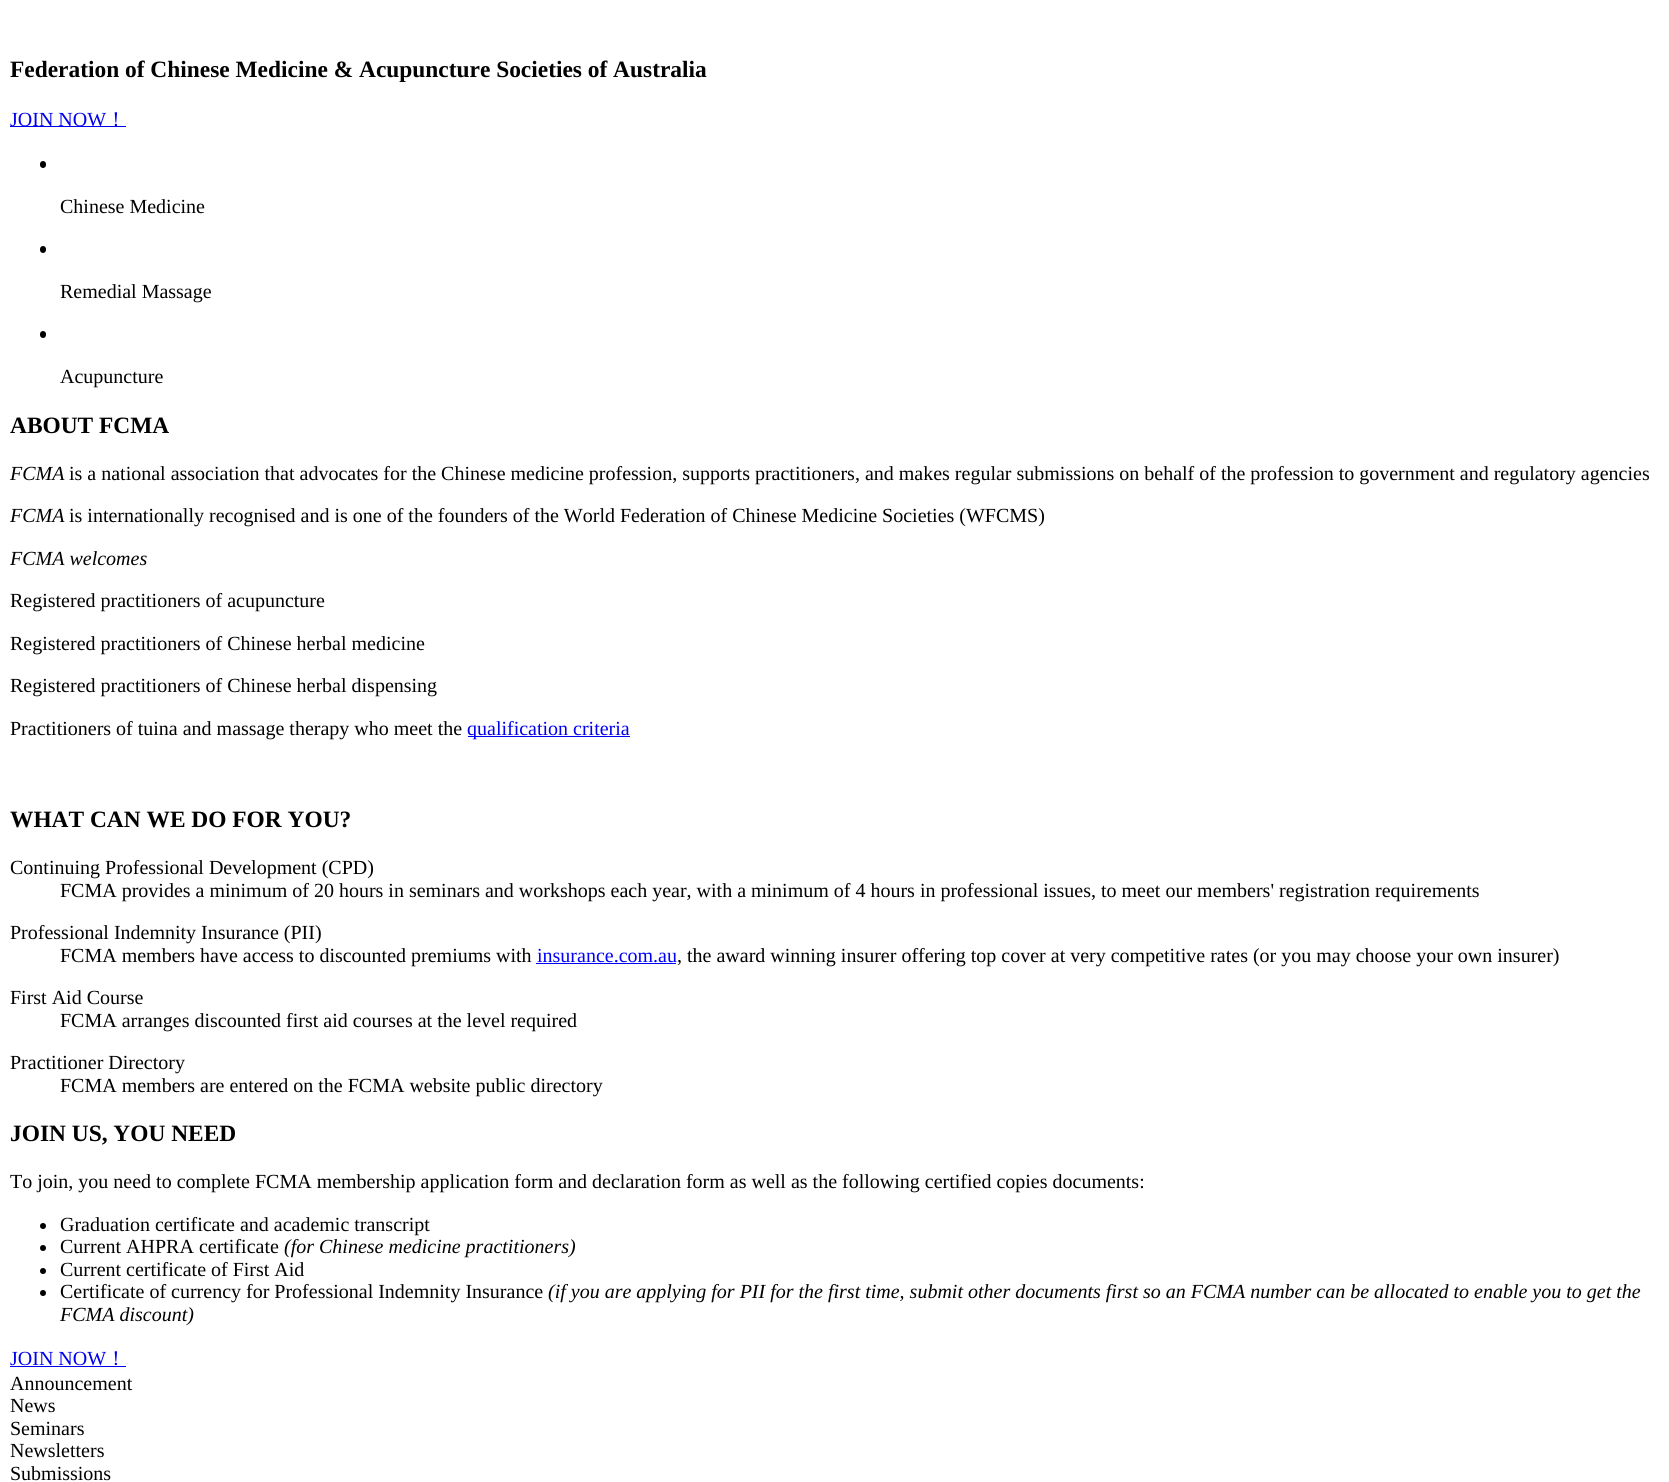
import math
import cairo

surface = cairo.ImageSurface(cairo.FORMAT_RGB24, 1669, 1482)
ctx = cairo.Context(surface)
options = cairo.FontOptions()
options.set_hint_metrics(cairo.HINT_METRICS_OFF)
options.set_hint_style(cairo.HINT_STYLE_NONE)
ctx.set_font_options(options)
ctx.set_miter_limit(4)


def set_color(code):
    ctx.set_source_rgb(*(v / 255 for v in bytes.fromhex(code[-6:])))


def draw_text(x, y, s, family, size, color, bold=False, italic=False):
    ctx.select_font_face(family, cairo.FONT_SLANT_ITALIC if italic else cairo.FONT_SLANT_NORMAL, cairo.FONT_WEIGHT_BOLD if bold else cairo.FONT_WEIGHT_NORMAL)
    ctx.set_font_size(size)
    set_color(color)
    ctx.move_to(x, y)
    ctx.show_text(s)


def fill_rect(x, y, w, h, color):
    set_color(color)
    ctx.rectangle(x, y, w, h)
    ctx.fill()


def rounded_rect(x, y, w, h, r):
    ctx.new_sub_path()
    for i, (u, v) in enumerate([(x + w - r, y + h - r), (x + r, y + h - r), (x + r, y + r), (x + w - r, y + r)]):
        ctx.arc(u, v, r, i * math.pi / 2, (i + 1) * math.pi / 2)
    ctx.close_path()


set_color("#ffffff")
ctx.paint()
draw_text(10, 77, "Federation of Chinese Medicine & Acupuncture Societies of Australia", "Liberation Serif", 23.4, "#000000", bold=True)
fill_rect(10, 126, 116, 1, "#0000ee")
draw_text(10, 126, "JOIN NOW", "Liberation Serif", 20, "#0000ee")
draw_text(106, 126, "！", "WenQuanYi Zen Hei Medium", 20, "#0000ee")
set_color("#000000")
rounded_rect(40, 161, 6, 7, 3)
ctx.fill()
draw_text(60, 213, "Chinese Medicine", "Liberation Serif", 20, "#000000")
rounded_rect(40, 246, 6, 7, 3)
ctx.fill()
draw_text(60, 298, "Remedial Massage", "Liberation Serif", 20, "#000000")
rounded_rect(40, 331, 6, 7, 3)
ctx.fill()
draw_text(60, 383, "Acupuncture", "Liberation Serif", 20, "#000000")
draw_text(10, 433, "ABOUT FCMA", "Liberation Serif", 23.4, "#000000", bold=True)
draw_text(10, 480, "FCMA", "Liberation Serif", 20, "#000000", italic=True)
draw_text(69, 480, "is a national association that advocates for the Chinese medicine profession, supports practitioners, and makes regular submissions on behalf of the profession to government and regulatory agencies", "Liberation Serif", 20, "#000000")
draw_text(10, 522, "FCMA", "Liberation Serif", 20, "#000000", italic=True)
draw_text(69, 522, "is internationally recognised and is one of the founders of the World Federation of Chinese Medicine Societies (WFCMS)", "Liberation Serif", 20, "#000000")
draw_text(10, 565, "FCMA welcomes", "Liberation Serif", 20, "#000000", italic=True)
draw_text(10, 607, "Registered practitioners of acupuncture", "Liberation Serif", 20, "#000000")
draw_text(10, 650, "Registered practitioners of Chinese herbal medicine", "Liberation Serif", 20, "#000000")
draw_text(10, 692, "Registered practitioners of Chinese herbal dispensing", "Liberation Serif", 20, "#000000")
draw_text(10, 735, "Practitioners of tuina and massage therapy who meet the", "Liberation Serif", 20, "#000000")
fill_rect(468, 736, 162, 1, "#0000ee")
draw_text(467, 735, "qualification criteria", "Liberation Serif", 20, "#0000ee")
draw_text(10, 827, "WHAT CAN WE DO FOR YOU?", "Liberation Serif", 23.4, "#000000", bold=True)
draw_text(10, 874, "Continuing Professional Development (CPD)", "Liberation Serif", 20, "#000000")
draw_text(60, 897, "FCMA provides a minimum of 20 hours in seminars and workshops each year, with a minimum of 4 hours in professional issues, to meet our members' registration requirements", "Liberation Serif", 20, "#000000")
draw_text(10, 939, "Professional Indemnity Insurance (PII)", "Liberation Serif", 20, "#000000")
draw_text(60, 962, "FCMA members have access to discounted premiums with", "Liberation Serif", 20, "#000000")
draw_text(537, 962, "insurance.com.au", "Liberation Serif", 20, "#0000ff")
fill_rect(536, 963, 140, 1, "#0000ff")
draw_text(677, 962, ", the award winning insurer offering top cover at very competitive rates (or you may choose your own insurer)", "Liberation Serif", 20, "#000000")
draw_text(10, 1004, "First Aid Course", "Liberation Serif", 20, "#000000")
draw_text(60, 1027, "FCMA arranges discounted first aid courses at the level required", "Liberation Serif", 20, "#000000")
draw_text(10, 1069, "Practitioner Directory", "Liberation Serif", 20, "#000000")
draw_text(60, 1092, "FCMA members are entered on the FCMA website public directory", "Liberation Serif", 20, "#000000")
draw_text(10, 1141, "JOIN US, YOU NEED", "Liberation Serif", 23.4, "#000000", bold=True)
draw_text(10, 1188, "To join, you need to complete FCMA membership application form and declaration form as well as the following certified copies documents:", "Liberation Serif", 20, "#000000")
ctx.new_path()
ctx.arc(43, 1226, 3, 0, 2 * math.pi)
ctx.fill()
draw_text(60, 1231, "Graduation certificate and academic transcript", "Liberation Serif", 20, "#000000")
ctx.new_path()
ctx.arc(43, 1248, 3, 0, 2 * math.pi)
ctx.fill()
draw_text(60, 1253, "Current AHPRA certificate", "Liberation Serif", 20, "#000000")
draw_text(284, 1253, "(for Chinese medicine practitioners)", "Liberation Serif", 20, "#000000", italic=True)
ctx.new_path()
ctx.arc(43, 1271, 3, 0, 2 * math.pi)
ctx.fill()
draw_text(60, 1276, "Current certificate of First Aid", "Liberation Serif", 20, "#000000")
ctx.new_path()
ctx.arc(43, 1293, 3, 0, 2 * math.pi)
ctx.fill()
draw_text(60, 1298, "Certificate of currency for Professional Indemnity Insurance", "Liberation Serif", 20, "#000000")
draw_text(548, 1298, "(if you are applying for PII for the first time, submit other documents first so an FCMA number can be allocated to enable you to get the", "Liberation Serif", 20, "#000000", italic=True)
draw_text(60, 1321, "FCMA discount)", "Liberation Serif", 20, "#000000", italic=True)
draw_text(10, 1365, "JOIN NOW", "Liberation Serif", 20, "#0000ee")
fill_rect(10, 1366, 116, 1, "#0000ee")
draw_text(106, 1365, "！", "WenQuanYi Zen Hei Medium", 20, "#0000ee")
draw_text(10, 1390, "Announcement", "Liberation Serif", 20, "#000000")
draw_text(10, 1412, "News", "Liberation Serif", 20, "#000000")
draw_text(10, 1435, "Seminars", "Liberation Serif", 20, "#000000")
draw_text(10, 1457, "Newsletters", "Liberation Serif", 20, "#000000")
draw_text(10, 1480, "Submissions", "Liberation Serif", 20, "#000000")
surface.write_to_png("output.png")
